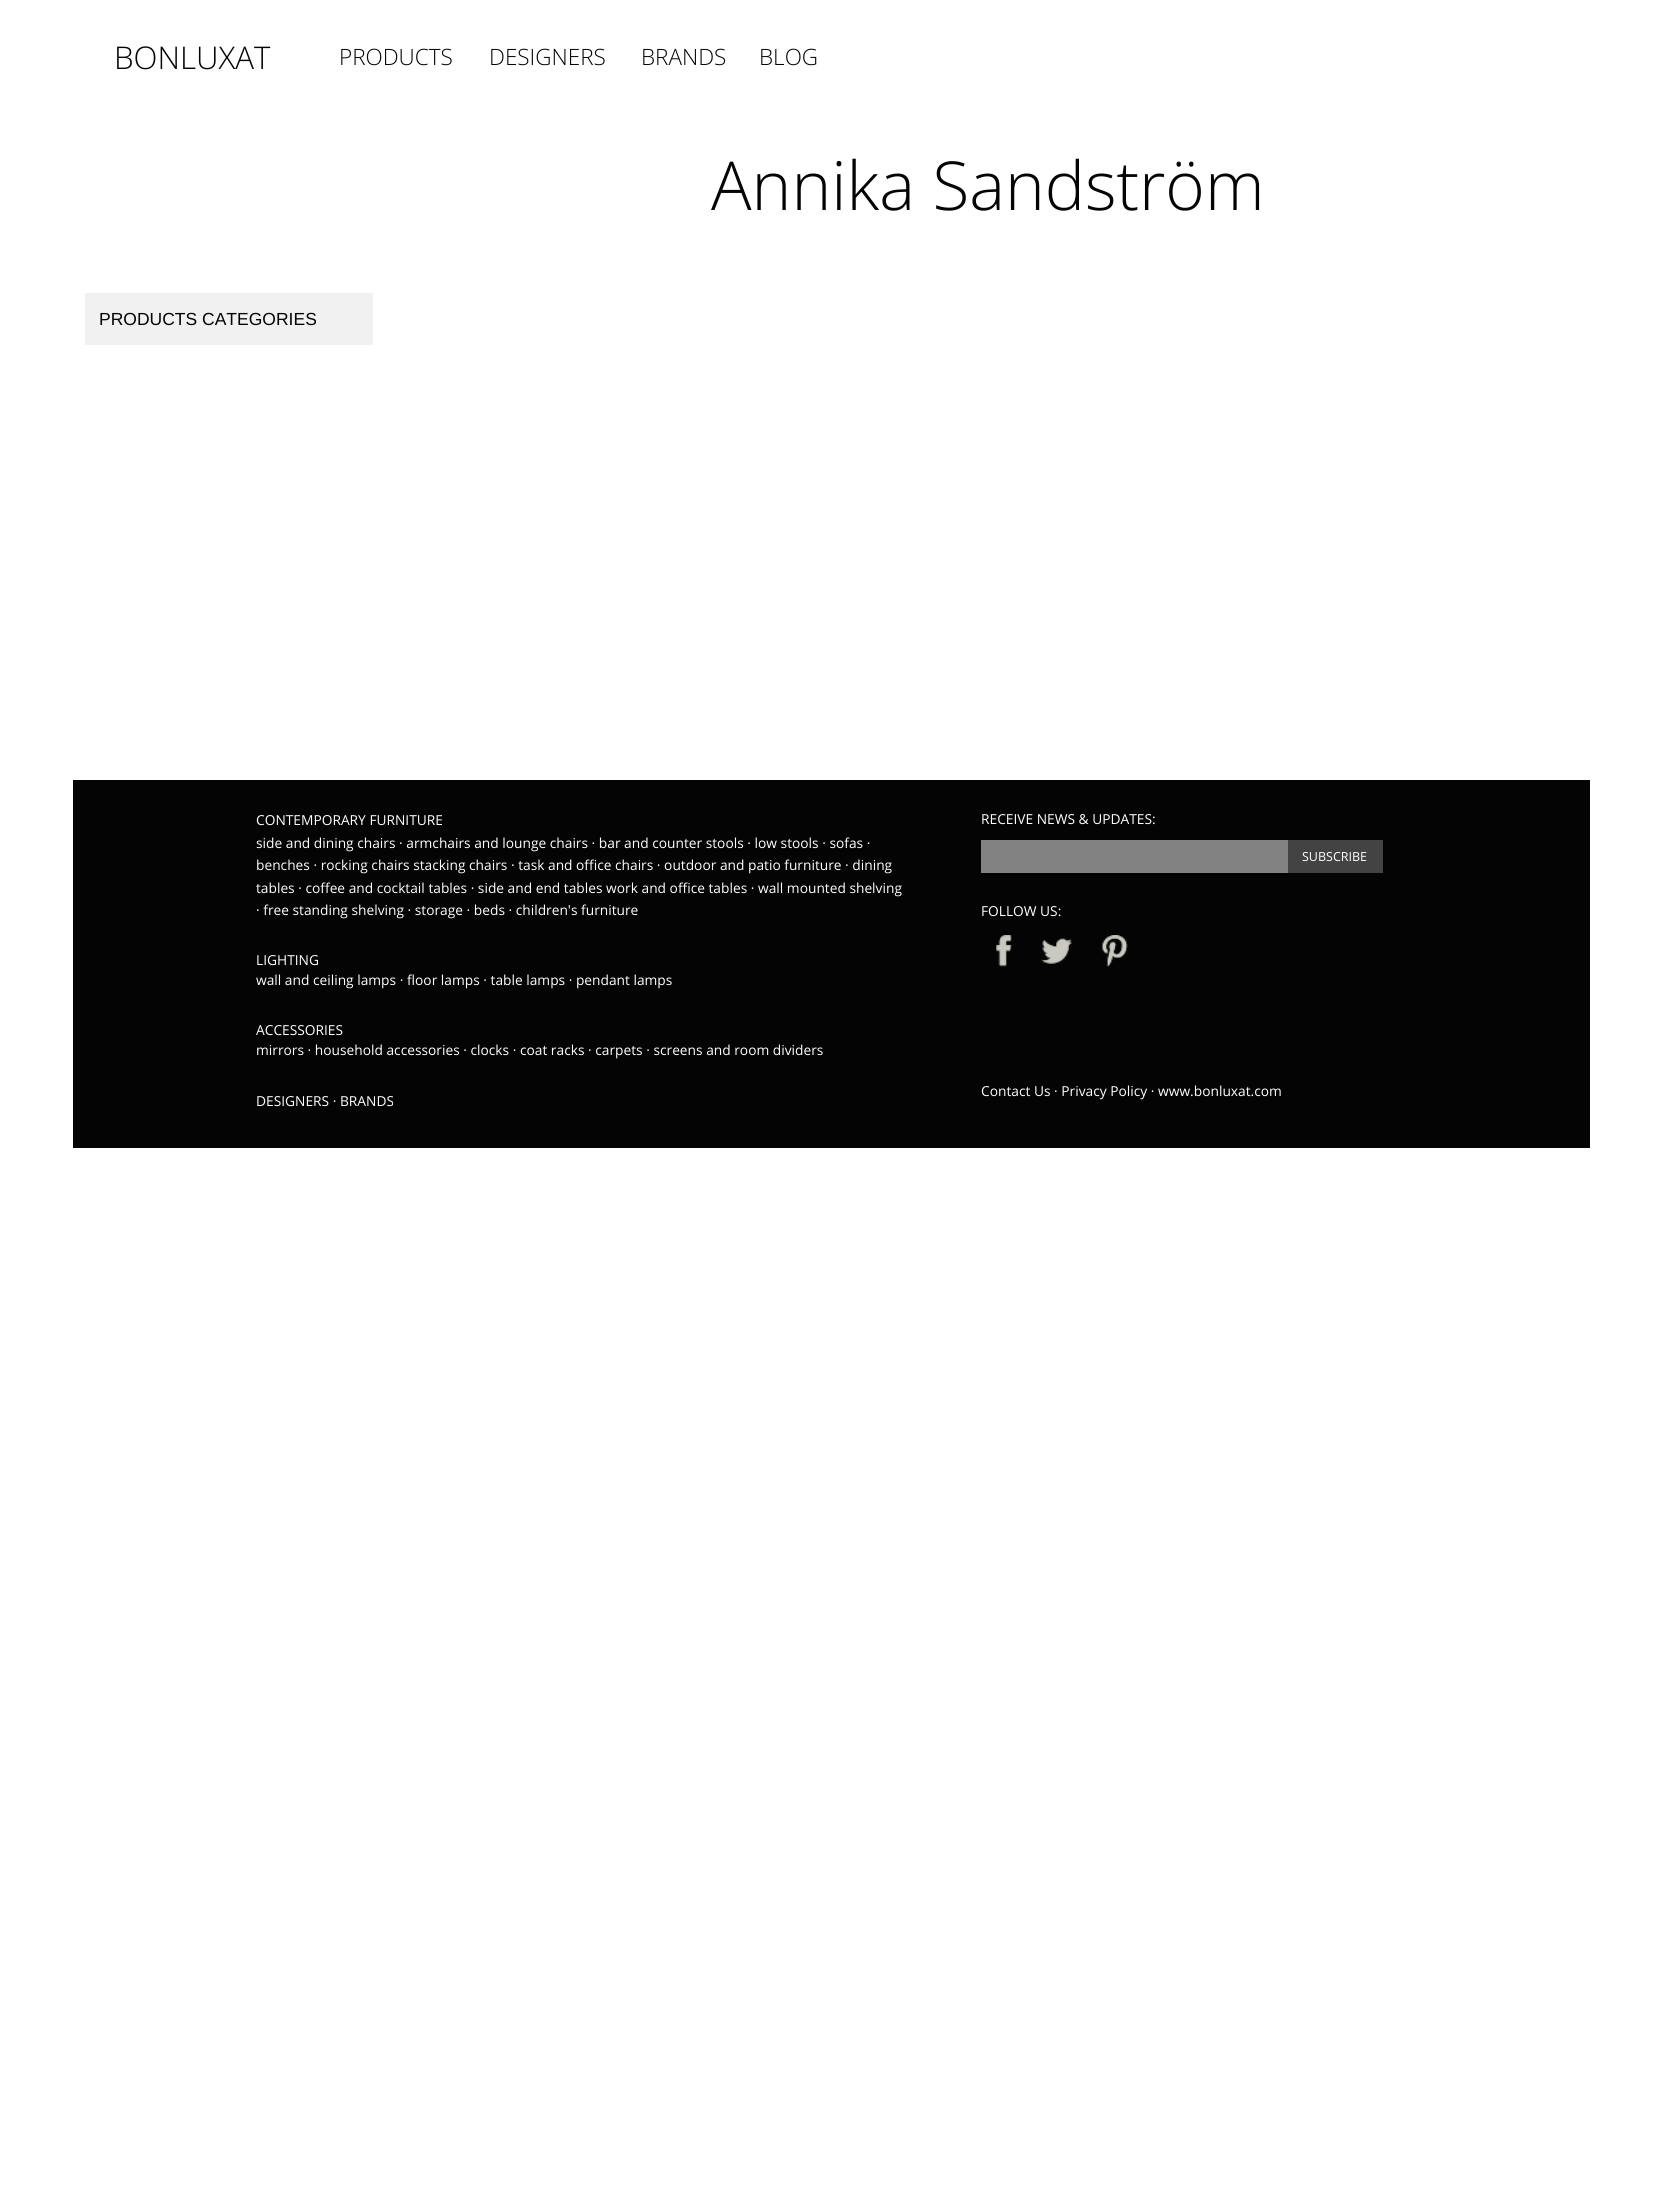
import math
import cairo

surface = cairo.ImageSurface(cairo.FORMAT_RGB24, 1662, 2205)
ctx = cairo.Context(surface)
options = cairo.FontOptions()
options.set_hint_metrics(cairo.HINT_METRICS_OFF)
options.set_hint_style(cairo.HINT_STYLE_NONE)
ctx.set_font_options(options)
ctx.set_miter_limit(4)


def set_color(code):
    ctx.set_source_rgb(*(v / 255 for v in bytes.fromhex(code[-6:])))


def draw_text(x, y, s, family, size, color, bold=False, italic=False):
    ctx.select_font_face(family, cairo.FONT_SLANT_ITALIC if italic else cairo.FONT_SLANT_NORMAL, cairo.FONT_WEIGHT_BOLD if bold else cairo.FONT_WEIGHT_NORMAL)
    ctx.set_font_size(size)
    set_color(color)
    ctx.move_to(x, y)
    ctx.show_text(s)


def fill_rect(x, y, w, h, color):
    set_color(color)
    ctx.rectangle(x, y, w, h)
    ctx.fill()


def draw_image(path, x, y, w, h):
    ctx.save()
    ctx.set_source_surface(cairo.ImageSurface.create_from_png(path), x, y)
    ctx.rectangle(x, y, w, h)
    ctx.fill()
    ctx.restore()


set_color("#ffffff")
ctx.paint()
draw_text(114, 69, "BONLUXAT", "Open Sans Light", 31.25, "#040404")
draw_text(339, 65, "PRODUCTS", "Open Sans Light", 22.5, "#040404")
draw_text(489, 65, "DESIGNERS", "Open Sans Light", 22.5, "#040404")
draw_text(641, 65, "BRANDS", "Open Sans Light", 22.5, "#040404")
draw_text(759, 65, "BLOG", "Open Sans Light", 22.5, "#040404")
draw_text(711, 210, "Annika Sandström", "Open Sans Light", 67.5, "#040404")
fill_rect(85, 293, 288, 52, "#f1f1f1")
draw_text(99, 325, "PRODUCTS CATEGORIES", "Liberation Sans", 17.5, "#040404")
fill_rect(73, 780, 1517, 368, "#040404")
draw_text(256, 825, "CONTEMPORARY FURNITURE", "Open Sans", 13.75, "#ffffff")
draw_text(256, 848, "side and dining chairs · armchairs and lounge chairs · bar and counter stools · low stools · sofas ·", "Open Sans", 13.75, "#ffffff")
draw_text(256, 870, "benches · rocking chairs stacking chairs · task and office chairs · outdoor and patio furniture · dining", "Open Sans", 13.75, "#ffffff")
draw_text(256, 893, "tables · coffee and cocktail tables · side and end tables work and office tables · wall mounted shelving", "Open Sans", 13.75, "#ffffff")
draw_text(256, 915, "· free standing shelving · storage · beds · children's furniture", "Open Sans", 13.75, "#ffffff")
draw_text(256, 965, "LIGHTING", "Open Sans", 13.75, "#ffffff")
draw_text(256, 985, "wall and ceiling lamps · floor lamps · table lamps · pendant lamps", "Open Sans", 13.75, "#ffffff")
draw_text(256, 1035, "ACCESSORIES", "Open Sans", 13.75, "#ffffff")
draw_text(256, 1055, "mirrors · household accessories · clocks · coat racks · carpets · screens and room dividers", "Open Sans", 13.75, "#ffffff")
draw_text(256, 1106, "DESIGNERS · BRANDS", "Open Sans", 13.75, "#ffffff")
draw_text(981, 824, "RECEIVE NEWS & UPDATES:", "Open Sans", 13.75, "#ffffff")
fill_rect(981, 840, 307, 33, "#828282")
fill_rect(1288, 840, 95, 33, "#434343")
draw_text(1302, 861, "SUBSCRIBE", "Open Sans", 12.5, "#ffffff")
draw_text(981, 916, "FOLLOW US:", "Open Sans", 13.75, "#ffffff")
draw_image("assets/img1.png", 996, 935, 16, 32)
draw_image("assets/img2.png", 1041, 938, 32, 26)
draw_image("assets/img3.png", 1102, 935, 26, 32)
draw_text(981, 1096, "Contact Us · Privacy Policy · www.bonluxat.com", "Open Sans", 13.75, "#ffffff")
surface.write_to_png("output.png")
